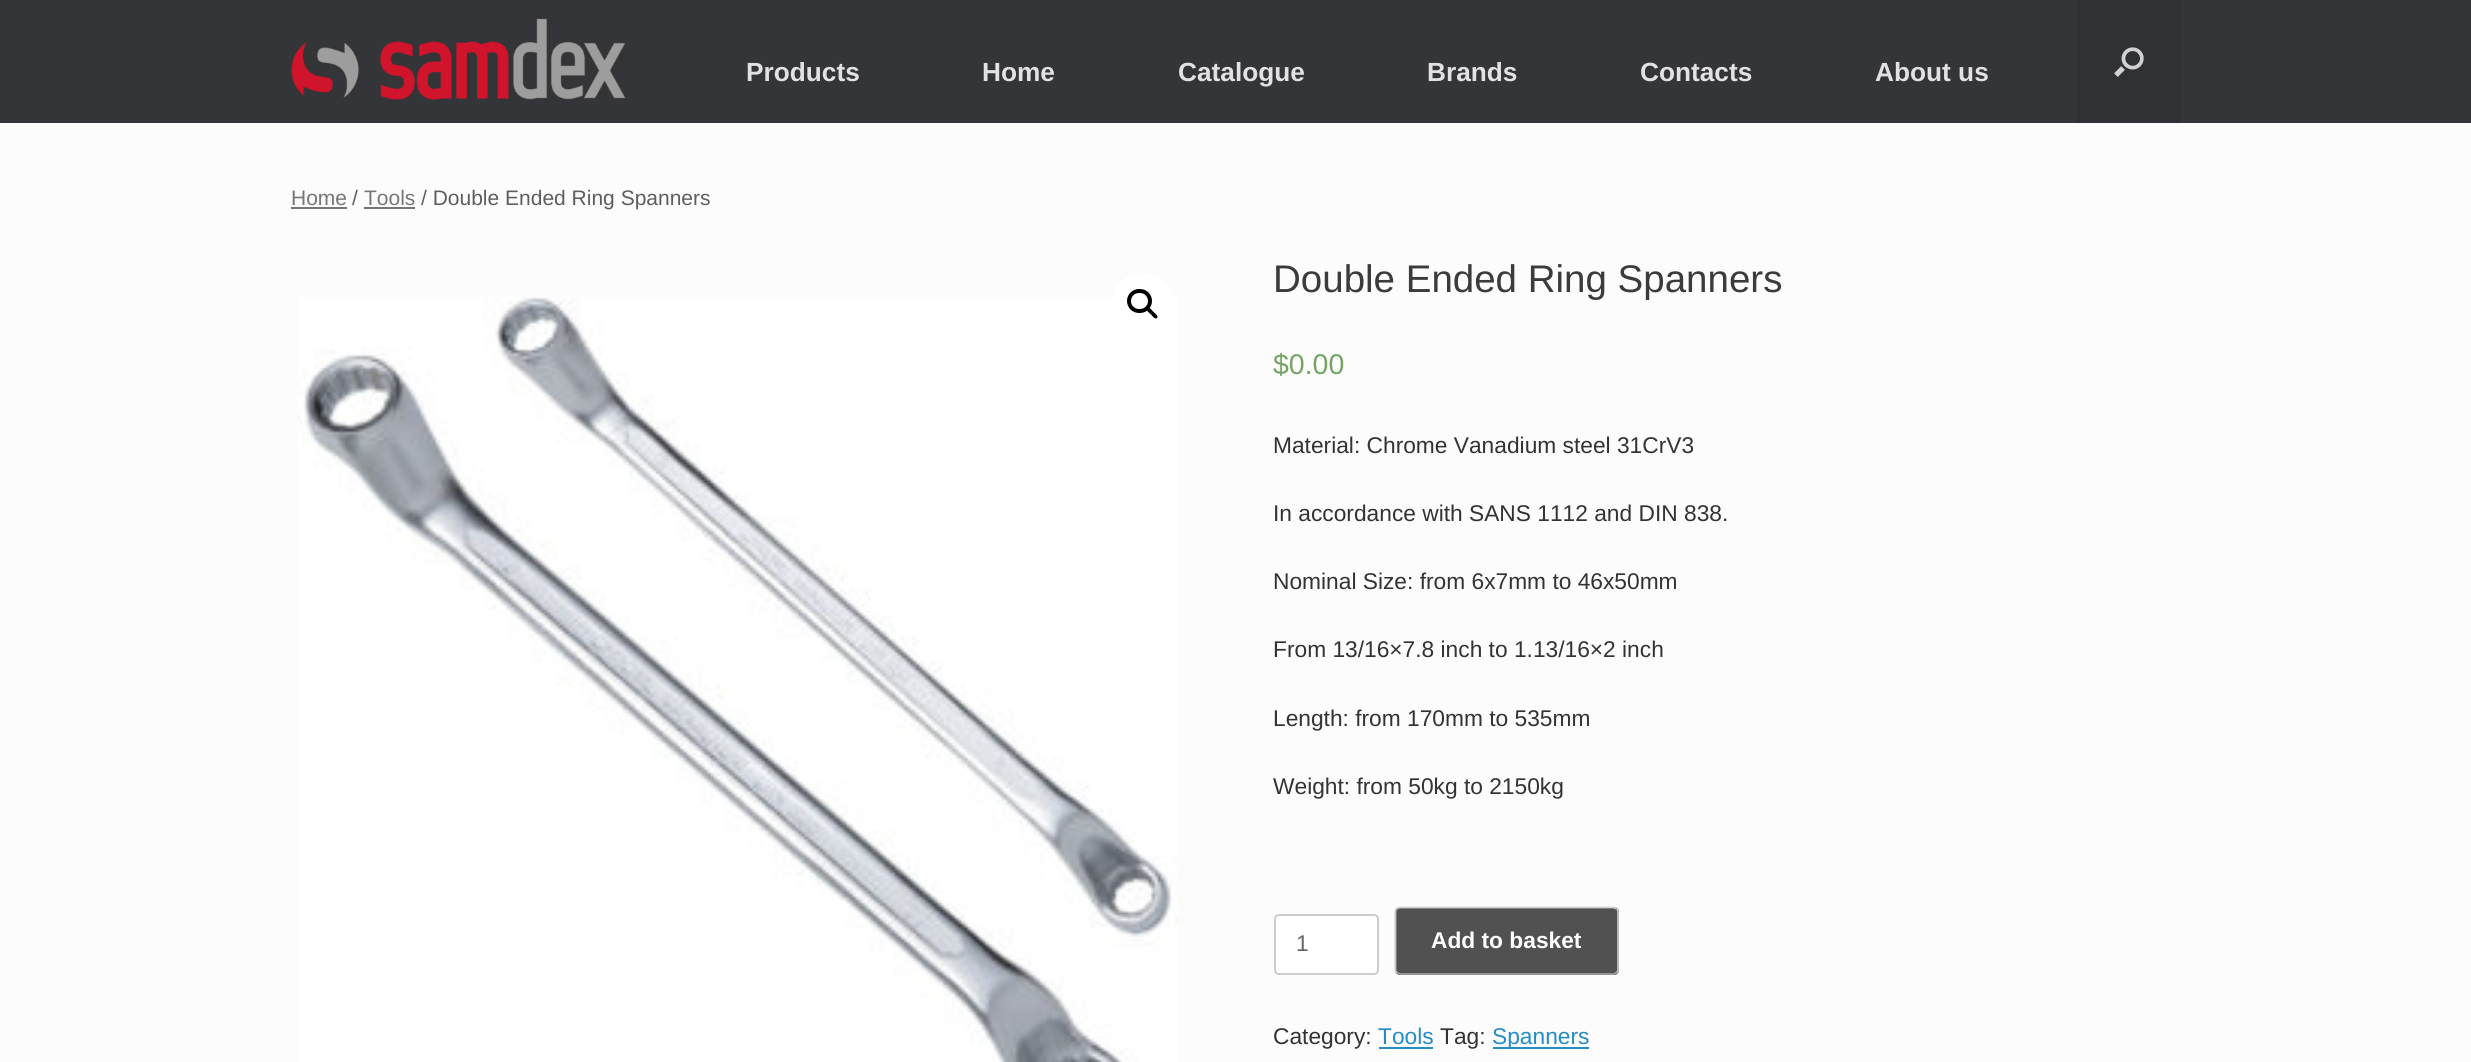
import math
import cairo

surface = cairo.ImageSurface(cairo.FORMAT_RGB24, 2471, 1062)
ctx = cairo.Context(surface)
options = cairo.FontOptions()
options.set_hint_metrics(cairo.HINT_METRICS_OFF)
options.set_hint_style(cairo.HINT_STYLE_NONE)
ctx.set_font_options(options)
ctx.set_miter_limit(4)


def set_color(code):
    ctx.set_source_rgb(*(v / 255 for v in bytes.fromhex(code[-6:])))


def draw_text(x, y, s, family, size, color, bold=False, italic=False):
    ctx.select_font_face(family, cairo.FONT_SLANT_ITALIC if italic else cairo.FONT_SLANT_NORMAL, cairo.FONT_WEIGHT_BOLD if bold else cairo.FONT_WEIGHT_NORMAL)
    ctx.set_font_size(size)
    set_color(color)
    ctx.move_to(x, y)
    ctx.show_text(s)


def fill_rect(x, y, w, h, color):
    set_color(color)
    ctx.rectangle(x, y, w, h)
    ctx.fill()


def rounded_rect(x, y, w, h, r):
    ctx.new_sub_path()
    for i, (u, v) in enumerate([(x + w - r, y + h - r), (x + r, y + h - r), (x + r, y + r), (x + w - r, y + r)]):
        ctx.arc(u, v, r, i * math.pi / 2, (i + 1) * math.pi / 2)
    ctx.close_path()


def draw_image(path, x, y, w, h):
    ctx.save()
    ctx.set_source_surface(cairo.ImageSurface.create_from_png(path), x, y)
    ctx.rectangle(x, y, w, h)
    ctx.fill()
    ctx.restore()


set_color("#fcfcfc")
ctx.paint()
fill_rect(0, 0, 2471, 123, "#343538")
draw_image("assets/img1.png", 291, 18, 335, 82)
draw_text(746, 81, "Products", "Liberation Sans", 26.25, "#e2e2e2", bold=True)
draw_text(982, 81, "Home", "Liberation Sans", 26.25, "#e2e2e2", bold=True)
draw_text(1178, 81, "Catalogue", "Liberation Sans", 26.25, "#e2e2e2", bold=True)
draw_text(1427, 81, "Brands", "Liberation Sans", 26.25, "#e2e2e2", bold=True)
draw_text(1640, 81, "Contacts", "Liberation Sans", 26.25, "#e2e2e2", bold=True)
draw_text(1875, 81, "About us", "Liberation Sans", 26.25, "#e2e2e2", bold=True)
fill_rect(2077, 0, 104, 123, "#303134")
draw_image("assets/img2.png", 2114, 47, 30, 30)
draw_text(291, 205, "Home", "Liberation Sans", 21, "#767676")
fill_rect(291, 207, 56, 2, "#767676")
draw_text(352, 205, "/", "Liberation Sans", 21, "#5e5e5e")
draw_text(364, 205, "Tools", "Liberation Sans", 21, "#767676")
fill_rect(364, 207, 51, 2, "#767676")
draw_text(421, 205, "/ Double Ended Ring Spanners", "Liberation Sans", 21, "#5e5e5e")
draw_image("assets/img3.png", 297, 297, 881, 765)
set_color("#ffffff")
ctx.arc(1142.5, 304.5, 31.5, 0, 2 * math.pi)
ctx.fill()
rounded_rect(1129, 291, 21, 20, 10)
set_color("#000000")
ctx.set_line_width(4)
ctx.stroke()
ctx.new_path()
ctx.move_to(1147, 308)
ctx.curve_to(1149, 306, 1152.5, 311, 1153.5, 312)
ctx.curve_to(1154.5, 313, 1159, 316, 1157, 318)
ctx.curve_to(1155, 320, 1152, 315.5, 1151, 314.5)
ctx.curve_to(1150, 313.5, 1145, 310, 1147, 308)
ctx.close_path()
ctx.fill()
draw_text(1273, 292, "Double Ended Ring Spanners", "Liberation Sans", 38.5, "#3b3b3b")
draw_text(1273, 374, "$0.00", "Liberation Sans", 28.5, "#77a464")
draw_text(1273, 453, "Material: Chrome Vanadium steel 31CrV3", "Liberation Sans", 22.75, "#333333")
draw_text(1273, 521, "In accordance with SANS 1112 and DIN 838.", "Liberation Sans", 22.75, "#333333")
draw_text(1273, 589, "Nominal Size: from 6x7mm to 46x50mm", "Liberation Sans", 22.75, "#333333")
draw_text(1273, 657, "From 13/16×7.8 inch to 1.13/16×2 inch", "Liberation Sans", 22.75, "#333333")
draw_text(1273, 726, "Length: from 170mm to 535mm", "Liberation Sans", 22.75, "#333333")
draw_text(1273, 794, "Weight: from 50kg to 2150kg", "Liberation Sans", 22.75, "#333333")
set_color("#ffffff")
rounded_rect(1275, 915, 103, 59, 4)
ctx.fill_preserve()
set_color("#cccccc")
ctx.set_line_width(2)
ctx.stroke()
draw_text(1296, 951, "1", "Liberation Sans", 22.75, "#666666")
set_color("#515151")
rounded_rect(1395, 907, 224, 68, 5)
ctx.fill()
ctx.new_path()
ctx.move_to(1397, 908.5)
ctx.line_to(1399.5, 907.5)
ctx.line_to(1578, 907.5)
ctx.line_to(1613.5, 907.5)
ctx.line_to(1616.5, 908.5)
set_color("#d2d2d2")
ctx.set_line_width(1.8)
ctx.stroke()
ctx.new_path()
ctx.move_to(1616.5, 908.5)
ctx.curve_to(1617.5, 909.5, 1618, 910.5, 1618, 912)
ctx.line_to(1618, 969.5)
ctx.curve_to(1618, 970.5, 1617.5, 972, 1616.5, 972.5)
set_color("#c3c3c3")
ctx.stroke()
ctx.new_path()
ctx.move_to(1616.5, 972.5)
ctx.line_to(1614, 974)
ctx.line_to(1435.5, 974)
ctx.line_to(1400, 974)
ctx.line_to(1397, 972.5)
set_color("#9f9f9f")
ctx.stroke()
ctx.new_path()
ctx.move_to(1397, 972.5)
ctx.curve_to(1396, 972, 1395.5, 970.5, 1395.5, 969.5)
ctx.line_to(1395.5, 912)
ctx.curve_to(1395.5, 910.5, 1396, 909.5, 1397, 908.5)
set_color("#c3c3c3")
ctx.stroke()
draw_text(1431, 948, "Add to basket", "Liberation Sans", 22.75, "#ffffff", bold=True)
draw_text(1273, 1044, "Category:", "Liberation Sans", 22.75, "#333333")
draw_text(1378, 1044, "Tools", "Liberation Sans", 22.75, "#248cc8")
fill_rect(1379, 1047, 54, 2, "#248cc8")
draw_text(1440, 1044, "Tag:", "Liberation Sans", 22.75, "#333333")
fill_rect(1493, 1047, 96, 2, "#248cc8")
draw_text(1492, 1044, "Spanners", "Liberation Sans", 22.75, "#248cc8")
surface.write_to_png("output.png")
